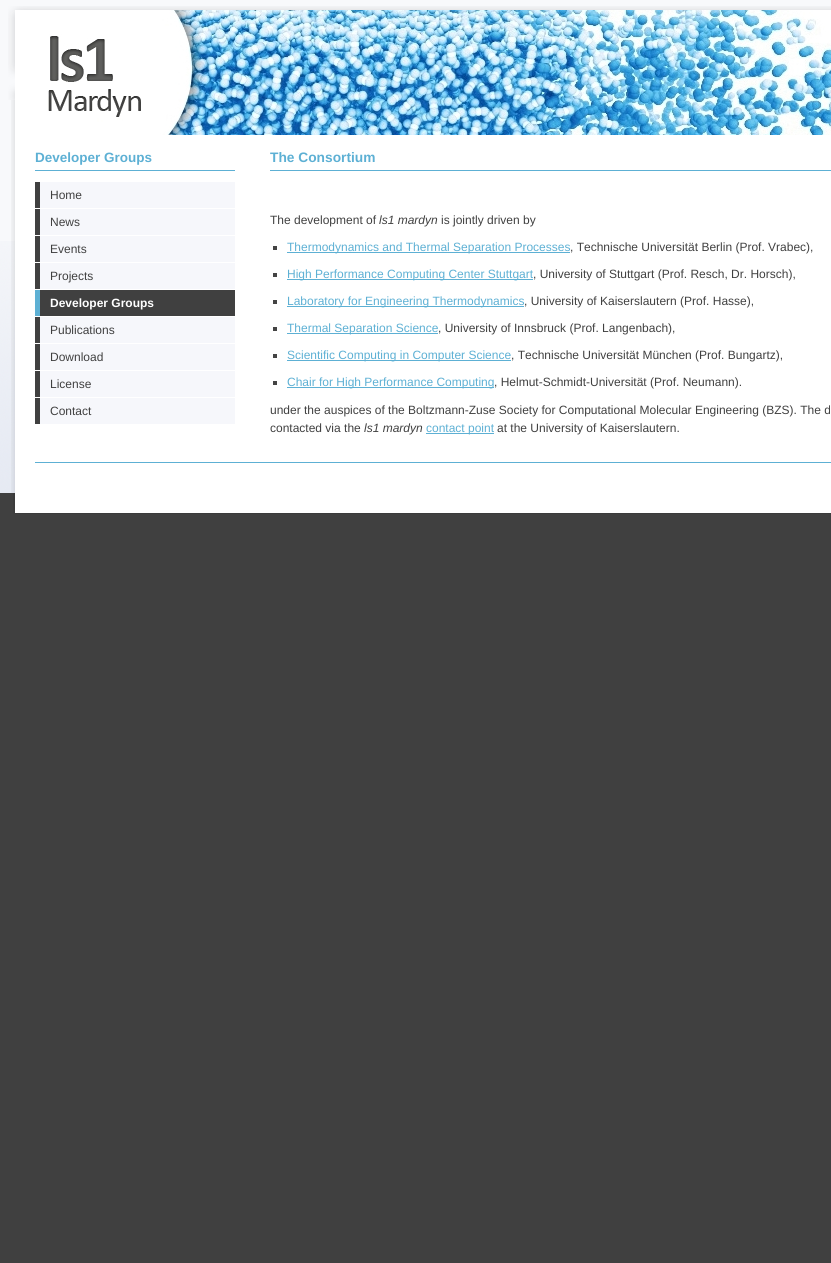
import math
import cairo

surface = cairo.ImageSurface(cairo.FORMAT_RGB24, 831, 1263)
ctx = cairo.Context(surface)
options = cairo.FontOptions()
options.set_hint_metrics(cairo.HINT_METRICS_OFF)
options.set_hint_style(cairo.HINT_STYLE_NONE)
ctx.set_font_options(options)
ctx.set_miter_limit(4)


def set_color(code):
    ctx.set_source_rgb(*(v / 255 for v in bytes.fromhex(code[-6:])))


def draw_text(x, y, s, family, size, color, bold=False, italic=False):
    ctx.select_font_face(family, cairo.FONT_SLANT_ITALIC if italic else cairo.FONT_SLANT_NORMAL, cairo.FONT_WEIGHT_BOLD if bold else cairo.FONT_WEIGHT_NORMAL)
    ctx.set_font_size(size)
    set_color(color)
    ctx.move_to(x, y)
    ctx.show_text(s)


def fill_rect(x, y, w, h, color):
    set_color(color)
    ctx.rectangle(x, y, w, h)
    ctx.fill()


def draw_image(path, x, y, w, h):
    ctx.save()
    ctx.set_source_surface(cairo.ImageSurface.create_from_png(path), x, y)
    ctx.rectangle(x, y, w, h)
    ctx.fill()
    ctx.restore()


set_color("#404040")
ctx.paint()
fill_rect(0, 0, 831, 241, "#f8f9fb")
draw_image("assets/img1.png", 0, 241, 15, 252)
draw_image("assets/img2.png", 8, 6, 823, 94)
draw_image("assets/img4.png", 11, 100, 820, 393)
draw_image("assets/img3.png", 15, 10, 816, 125)
fill_rect(35, 170, 200, 1, "#5db0d4")
draw_text(35, 162, "Developer Groups", "Liberation Sans", 13.5, "#5db0d4", bold=True)
fill_rect(40, 182, 195, 26, "#f6f7fb")
fill_rect(35, 182, 5, 26, "#404040")
draw_text(50, 199, "Home", "Liberation Sans", 12, "#404040")
fill_rect(40, 209, 195, 26, "#f6f7fb")
fill_rect(35, 209, 5, 26, "#404040")
draw_text(50, 226, "News", "Liberation Sans", 12, "#404040")
fill_rect(40, 236, 195, 26, "#f6f7fb")
fill_rect(35, 236, 5, 26, "#404040")
draw_text(50, 253, "Events", "Liberation Sans", 12, "#404040")
fill_rect(40, 263, 195, 26, "#f6f7fb")
fill_rect(35, 263, 5, 26, "#404040")
draw_text(50, 280, "Projects", "Liberation Sans", 12, "#404040")
fill_rect(40, 290, 195, 26, "#404040")
fill_rect(35, 290, 5, 26, "#5db0d4")
draw_text(50, 307, "Developer Groups", "Liberation Sans", 12, "#ffffff", bold=True)
fill_rect(40, 317, 195, 26, "#f6f7fb")
fill_rect(35, 317, 5, 26, "#404040")
draw_text(50, 334, "Publications", "Liberation Sans", 12, "#404040")
fill_rect(40, 344, 195, 26, "#f6f7fb")
fill_rect(35, 344, 5, 26, "#404040")
draw_text(50, 361, "Download", "Liberation Sans", 12, "#404040")
fill_rect(40, 371, 195, 26, "#f6f7fb")
fill_rect(35, 371, 5, 26, "#404040")
draw_text(50, 388, "License", "Liberation Sans", 12, "#404040")
fill_rect(40, 398, 195, 26, "#f6f7fb")
fill_rect(35, 398, 5, 26, "#404040")
draw_text(50, 415, "Contact", "Liberation Sans", 12, "#404040")
fill_rect(270, 170, 561, 1, "#5db0d4")
draw_text(270, 162, "The Consortium", "Liberation Sans", 13.75, "#5db0d4", bold=True)
draw_text(270, 224, "The development of", "Liberation Sans", 12, "#404040")
draw_text(379, 224, "ls1 mardyn", "Liberation Sans", 12, "#404040", italic=True)
draw_text(441, 224, "is jointly driven by", "Liberation Sans", 12, "#404040")
fill_rect(273, 246, 4, 4, "#444444")
fill_rect(287, 252, 283, 1, "#5db0d4")
draw_text(287, 251, "Thermodynamics and Thermal Separation Processes", "Liberation Sans", 12, "#5db0d4")
draw_text(570, 251, ", Technische Universität Berlin (Prof. Vrabec),", "Liberation Sans", 12, "#404040")
fill_rect(273, 273, 4, 4, "#444444")
fill_rect(287, 279, 246, 1, "#5db0d4")
draw_text(287, 278, "High Performance Computing Center Stuttgart", "Liberation Sans", 12, "#5db0d4")
draw_text(533, 278, ", University of Stuttgart (Prof. Resch, Dr. Horsch),", "Liberation Sans", 12, "#404040")
fill_rect(273, 300, 4, 4, "#444444")
fill_rect(287, 306, 237, 1, "#5db0d4")
draw_text(287, 305, "Laboratory for Engineering Thermodynamics", "Liberation Sans", 12, "#5db0d4")
draw_text(524, 305, ", University of Kaiserslautern (Prof. Hasse),", "Liberation Sans", 12, "#404040")
fill_rect(273, 327, 4, 4, "#444444")
fill_rect(287, 333, 151, 1, "#5db0d4")
draw_text(287, 332, "Thermal Separation Science", "Liberation Sans", 12, "#5db0d4")
draw_text(438, 332, ", University of Innsbruck (Prof. Langenbach),", "Liberation Sans", 12, "#404040")
fill_rect(273, 354, 4, 4, "#444444")
fill_rect(287, 360, 224, 1, "#5db0d4")
draw_text(287, 359, "Scientific Computing in Computer Science", "Liberation Sans", 12, "#5db0d4")
draw_text(511, 359, ", Technische Universität München (Prof. Bungartz),", "Liberation Sans", 12, "#404040")
fill_rect(273, 381, 4, 4, "#444444")
fill_rect(287, 387, 207, 1, "#5db0d4")
draw_text(287, 386, "Chair for High Performance Computing", "Liberation Sans", 12, "#5db0d4")
draw_text(494, 386, ", Helmut-Schmidt-Universität (Prof. Neumann).", "Liberation Sans", 12, "#404040")
draw_text(270, 414, "under the auspices of the Boltzmann-Zuse Society for Computational Molecular Engineering (BZS). The d", "Liberation Sans", 12, "#404040")
draw_text(270, 432, "contacted via the", "Liberation Sans", 12, "#404040")
draw_text(364, 432, "ls1 mardyn", "Liberation Sans", 12, "#404040", italic=True)
fill_rect(426, 433, 68, 1, "#5db0d4")
draw_text(426, 432, "contact point", "Liberation Sans", 12, "#5db0d4")
draw_text(497, 432, "at the University of Kaiserslautern.", "Liberation Sans", 12, "#404040")
fill_rect(35, 462, 796, 1, "#5db0d4")
draw_image("assets/img5.png", 13, 493, 818, 21)
surface.write_to_png("output.png")
